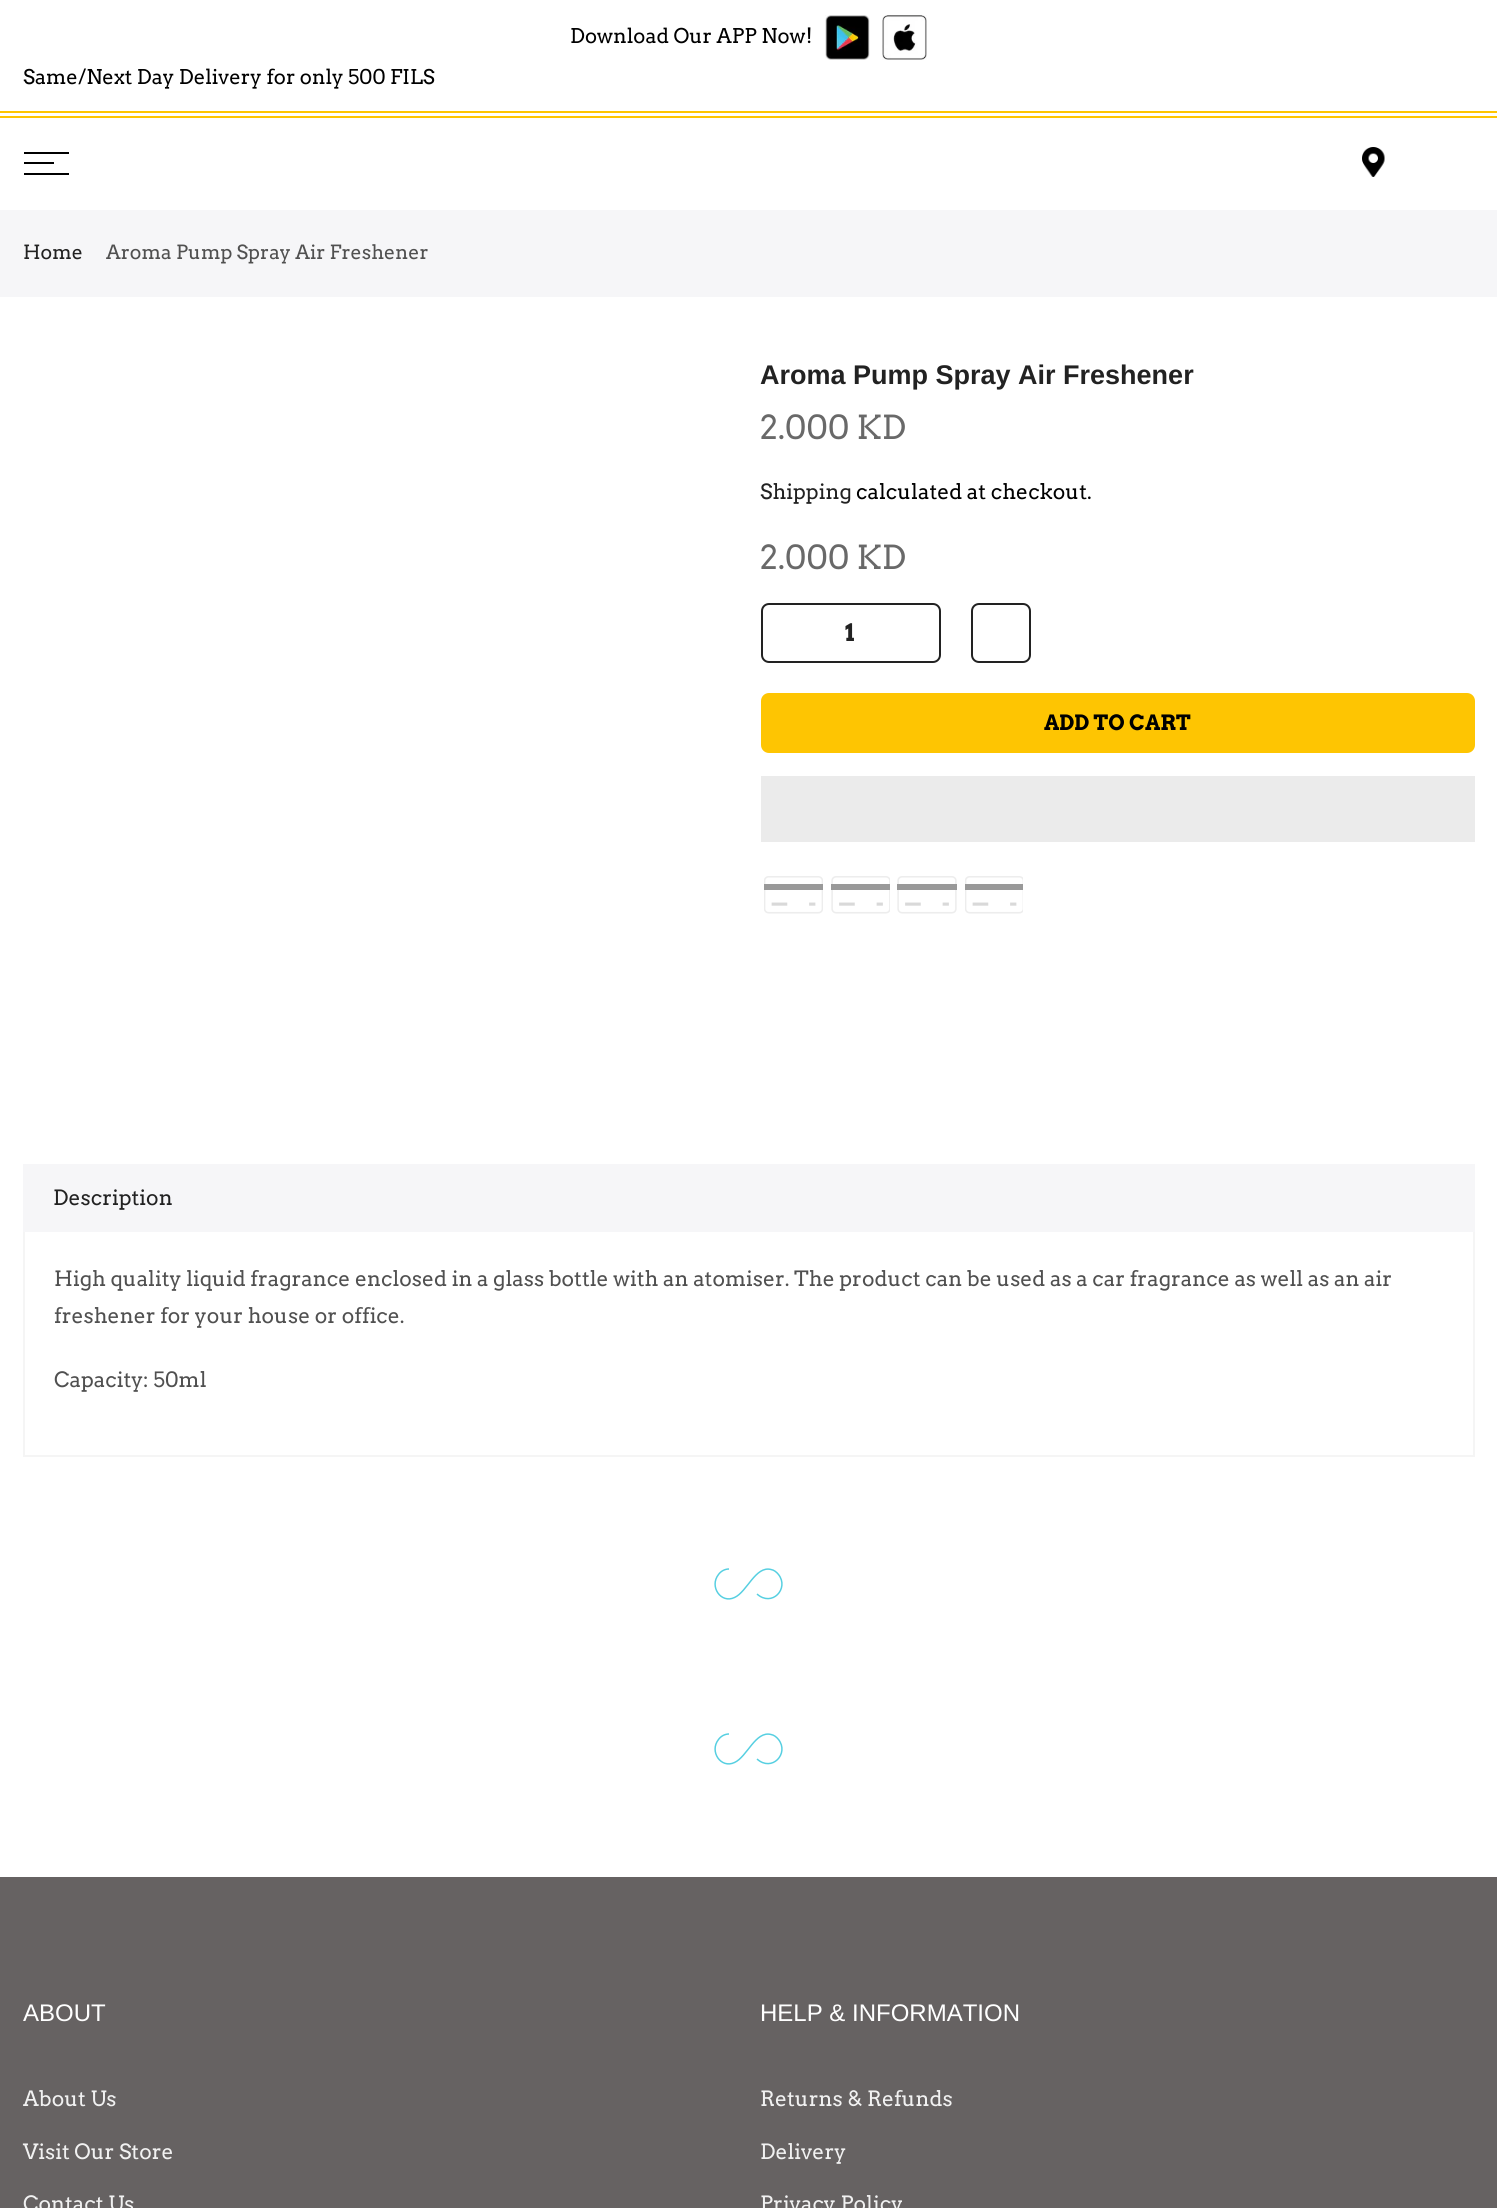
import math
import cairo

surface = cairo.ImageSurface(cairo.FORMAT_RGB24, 1497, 2208)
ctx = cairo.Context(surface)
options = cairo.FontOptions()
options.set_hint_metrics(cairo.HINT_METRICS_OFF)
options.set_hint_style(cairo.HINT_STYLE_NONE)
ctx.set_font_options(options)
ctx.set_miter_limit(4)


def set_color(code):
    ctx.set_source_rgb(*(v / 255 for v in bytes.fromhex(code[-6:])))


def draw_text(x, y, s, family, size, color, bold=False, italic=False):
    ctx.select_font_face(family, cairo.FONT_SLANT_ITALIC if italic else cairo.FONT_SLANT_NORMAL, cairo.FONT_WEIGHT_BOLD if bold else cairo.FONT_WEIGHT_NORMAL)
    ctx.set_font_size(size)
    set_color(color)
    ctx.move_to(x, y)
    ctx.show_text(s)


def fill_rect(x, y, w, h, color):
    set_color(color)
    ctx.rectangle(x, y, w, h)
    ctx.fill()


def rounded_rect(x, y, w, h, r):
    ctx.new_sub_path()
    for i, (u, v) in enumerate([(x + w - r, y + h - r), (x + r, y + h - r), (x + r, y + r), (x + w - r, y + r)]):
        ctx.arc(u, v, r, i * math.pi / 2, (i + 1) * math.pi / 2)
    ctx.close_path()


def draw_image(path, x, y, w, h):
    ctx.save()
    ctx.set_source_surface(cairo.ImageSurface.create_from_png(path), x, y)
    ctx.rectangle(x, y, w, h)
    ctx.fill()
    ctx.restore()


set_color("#ffffff")
ctx.paint()
fill_rect(0, 111, 1497, 2, "#fec502")
draw_text(570, 43, "Download Our APP Now!", "Arvo", 20.25, "#000000")
draw_image("assets/img1.png", 825, 15, 45, 45)
draw_image("assets/img2.png", 882, 15, 45, 45)
draw_text(23, 84, "Same/Next Day Delivery for only 500 FILS", "Arvo", 20.25, "#000000")
fill_rect(0, 116, 1497, 2, "#fec502")
fill_rect(24, 152, 45, 2, "#000000")
fill_rect(24, 162, 30, 2, "#000000")
fill_rect(24, 173, 45, 2, "#000000")
draw_image("assets/img3.png", 1362, 147, 23, 30)
fill_rect(0, 210, 1497, 87, "#f6f6f8")
draw_text(23, 259, "Home", "Arvo", 19.5, "#222222")
draw_text(106, 259, "Aroma Pump Spray Air Freshener", "Arvo", 19.5, "#505050")
draw_text(760, 384, "Aroma Pump Spray Air Freshener", "Liberation Sans", 27, "#222222", bold=True)
draw_text(760, 439, "2.000 KD", "Arvo", 33, "#696969")
draw_text(760, 499, "Shipping", "Arvo", 21, "#222222")
draw_text(856, 499, "calculated at checkout.", "Arvo", 21, "#000000")
draw_text(760, 569, "2.000 KD", "Arvo", 33, "#696969")
rounded_rect(762, 604, 178, 58, 7)
set_color("#222222")
ctx.stroke()
draw_text(845, 641, "1", "Arvo", 24, "#222222", bold=True)
rounded_rect(972, 604, 58, 58, 7)
ctx.stroke()
set_color("#fec502")
rounded_rect(761, 693, 714, 60, 8)
ctx.fill()
draw_text(1044, 730, "ADD TO CART", "Arvo", 21, "#000000", bold=True)
fill_rect(761, 776, 714, 66, "#ebebeb")
draw_image("assets/img4.png", 764, 876, 59, 38)
draw_image("assets/img5.png", 831, 876, 59, 38)
draw_image("assets/img6.png", 897, 876, 60, 38)
draw_image("assets/img7.png", 965, 876, 58, 38)
fill_rect(23, 1164, 1452, 68, "#f6f6f8")
draw_text(53, 1205, "Description", "Arvo", 21, "#222222")
fill_rect(1473, 1232, 2, 225, "#f5f5f5")
fill_rect(23, 1455, 1452, 2, "#f5f5f5")
fill_rect(23, 1232, 2, 225, "#f5f5f5")
draw_text(54, 1286, "High quality liquid fragrance enclosed in a glass bottle with an atomiser. The product can be used as a car fragrance as well as an air", "Arvo", 21, "#505050")
draw_text(54, 1323, "freshener for your house or office.", "Arvo", 21, "#505050")
draw_text(54, 1387, "Capacity: 50ml", "Arvo", 21, "#505050")
ctx.new_path()
ctx.move_to(729, 1569)
ctx.curve_to(725, 1569, 721, 1571, 718.5, 1574.5)
ctx.curve_to(709, 1586.5, 721, 1604, 734.5, 1597.5)
ctx.curve_to(747, 1592, 755.5, 1565.5, 771, 1569.5)
ctx.curve_to(774, 1570, 776.5, 1572, 778.5, 1574.5)
ctx.curve_to(789.5, 1588.5, 772, 1607.5, 757, 1594)
set_color("#56cfe1")
ctx.set_line_width(1.5)
ctx.stroke()
ctx.new_path()
ctx.move_to(729, 1734)
ctx.curve_to(725, 1734, 721, 1736, 718.5, 1739.5)
ctx.curve_to(709, 1751.5, 721, 1769, 734.5, 1762.5)
ctx.curve_to(747, 1757, 755.5, 1730.5, 771, 1734.5)
ctx.curve_to(774, 1735, 776.5, 1737, 778.5, 1739.5)
ctx.curve_to(789.5, 1753.5, 772, 1772.5, 757, 1759)
ctx.stroke()
fill_rect(0, 1877, 1497, 331, "#666262")
draw_text(23, 2021, "ABOUT", "Liberation Sans", 24, "#ffffff")
draw_text(23, 2106, "About Us", "Arvo", 21, "#f1f1f1")
draw_text(23, 2159, "Visit Our Store", "Arvo", 21, "#f1f1f1")
draw_text(23, 2211, "Contact Us", "Arvo", 21, "#f1f1f1")
draw_text(760, 2021, "HELP & INFORMATION", "Liberation Sans", 24, "#ffffff")
draw_text(760, 2106, "Returns & Refunds", "Arvo", 21, "#f1f1f1")
draw_text(760, 2159, "Delivery", "Arvo", 21, "#f1f1f1")
draw_text(760, 2211, "Privacy Policy", "Arvo", 21, "#f1f1f1")
surface.write_to_png("output.png")
